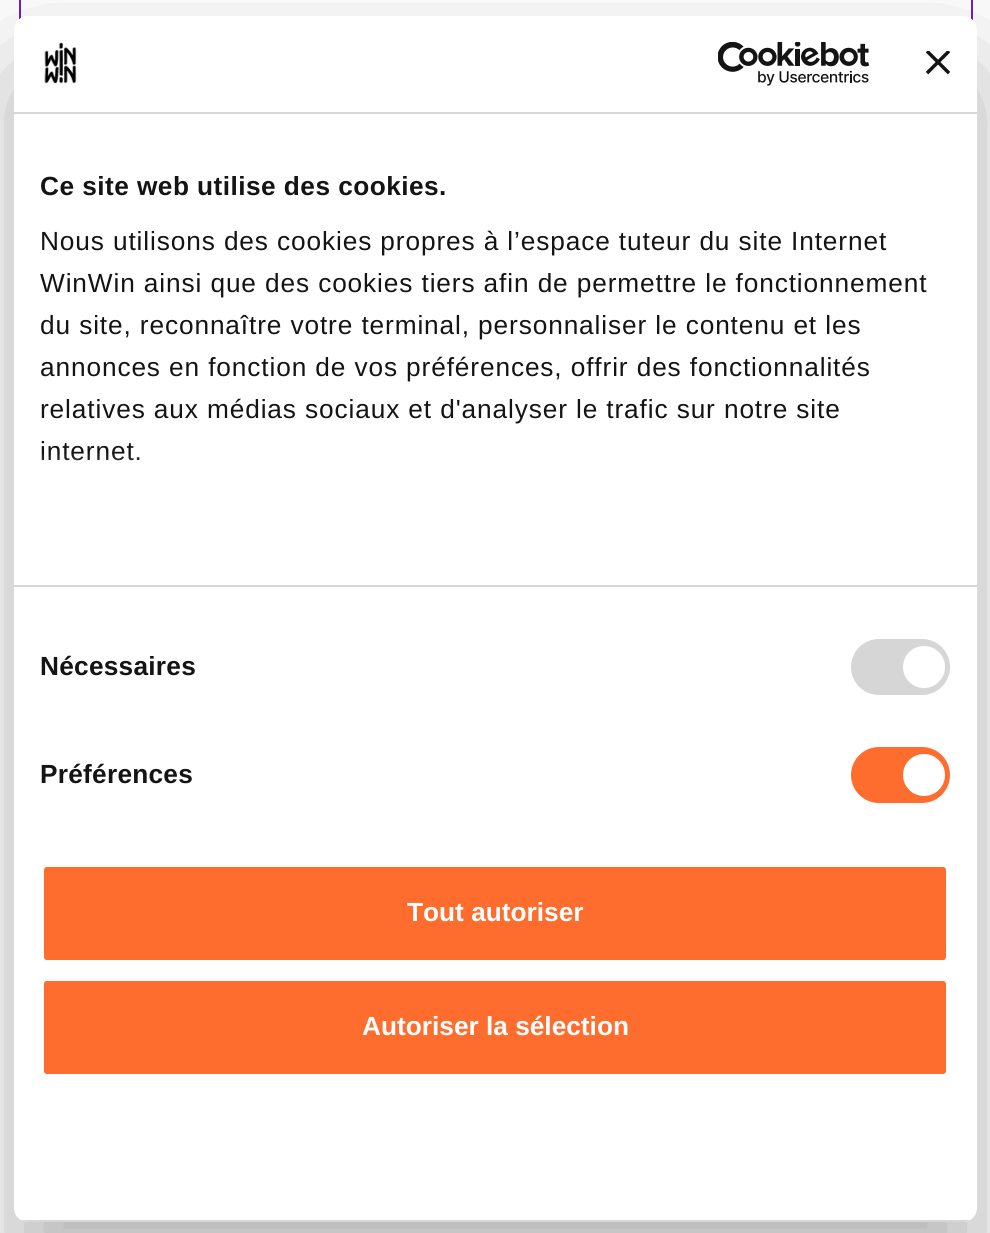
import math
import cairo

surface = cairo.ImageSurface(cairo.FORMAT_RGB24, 990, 1233)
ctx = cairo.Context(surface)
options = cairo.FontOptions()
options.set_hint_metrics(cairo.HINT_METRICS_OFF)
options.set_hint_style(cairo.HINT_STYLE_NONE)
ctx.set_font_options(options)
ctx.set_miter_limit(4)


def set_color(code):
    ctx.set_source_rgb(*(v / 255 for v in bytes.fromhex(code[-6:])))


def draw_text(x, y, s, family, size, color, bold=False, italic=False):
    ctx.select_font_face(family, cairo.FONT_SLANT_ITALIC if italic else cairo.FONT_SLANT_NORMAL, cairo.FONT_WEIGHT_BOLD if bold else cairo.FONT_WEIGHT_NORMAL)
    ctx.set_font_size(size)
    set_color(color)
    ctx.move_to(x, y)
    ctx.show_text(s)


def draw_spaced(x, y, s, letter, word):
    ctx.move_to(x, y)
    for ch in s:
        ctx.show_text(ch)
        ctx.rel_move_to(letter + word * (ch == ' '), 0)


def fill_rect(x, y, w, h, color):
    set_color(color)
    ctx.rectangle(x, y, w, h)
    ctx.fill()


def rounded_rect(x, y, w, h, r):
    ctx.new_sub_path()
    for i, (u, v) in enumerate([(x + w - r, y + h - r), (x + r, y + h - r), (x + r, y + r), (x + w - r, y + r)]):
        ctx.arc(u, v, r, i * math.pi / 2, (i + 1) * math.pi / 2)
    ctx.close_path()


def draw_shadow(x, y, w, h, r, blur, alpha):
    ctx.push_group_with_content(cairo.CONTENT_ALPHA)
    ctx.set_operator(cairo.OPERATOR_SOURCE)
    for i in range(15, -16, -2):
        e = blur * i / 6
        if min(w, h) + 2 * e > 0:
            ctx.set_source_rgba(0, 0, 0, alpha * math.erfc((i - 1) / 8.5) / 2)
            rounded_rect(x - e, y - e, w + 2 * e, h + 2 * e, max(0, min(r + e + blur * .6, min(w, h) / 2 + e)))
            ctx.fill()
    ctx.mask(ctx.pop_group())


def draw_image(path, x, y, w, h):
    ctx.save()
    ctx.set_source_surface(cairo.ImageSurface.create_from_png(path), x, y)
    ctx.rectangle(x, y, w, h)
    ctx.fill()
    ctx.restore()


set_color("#ffffff")
ctx.paint()
ctx.rectangle(20, -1, 952, 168)
set_color("#6520d8")
ctx.stroke()
set_color("#000000")
draw_shadow(14, 72, 963, 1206, 14, 59.5, 0.3)
set_color("#ffffff")
rounded_rect(14, 16, 963, 1206, 14)
ctx.fill()
fill_rect(14, 112, 963, 2, "#d6d6d6")
draw_image("assets/img1.png", 44, 42, 33, 42)
draw_image("assets/img2.png", 718, 42, 152, 44)
draw_image("assets/img3.png", 926, 51, 24, 24)
fill_rect(14, 585, 963, 2, "#d6d6d6")
ctx.select_font_face("Liberation Sans", cairo.FONT_SLANT_NORMAL, cairo.FONT_WEIGHT_BOLD)
ctx.set_font_size(26.25)
set_color("#141414")
draw_spaced(40, 195, "Ce site web utilise des cookies.", 0.45, 0)
ctx.select_font_face("Liberation Sans")
draw_spaced(40, 250, "Nous utilisons des cookies propres à l’espace tuteur du site Internet", 0.88, 0)
draw_spaced(40, 292, "WinWin ainsi que des cookies tiers afin de permettre le fonctionnement", 0.88, 0)
draw_spaced(40, 334, "du site, reconnaître votre terminal, personnaliser le contenu et les", 0.88, 0)
draw_spaced(40, 376, "annonces en fonction de vos préférences, offrir des fonctionnalités", 0.88, 0)
draw_spaced(40, 418, "relatives aux médias sociaux et d'analyser le trafic sur notre site", 0.88, 0)
draw_spaced(40, 460, "internet.", 0.88, 0)
gradient = cairo.LinearGradient(484, 584, 484, 452)
gradient.add_color_stop_rgba(0, 1, 1, 1, 1)
gradient.add_color_stop_rgba(0.5, 1, 1, 1, 0.8)
gradient.add_color_stop_rgba(1, 1, 1, 1, 0)
ctx.set_source(gradient)
ctx.rectangle(42, 454, 98, 7)
ctx.fill()
ctx.select_font_face("Liberation Sans", cairo.FONT_SLANT_NORMAL, cairo.FONT_WEIGHT_BOLD)
set_color("#141414")
draw_spaced(40, 675, "Nécessaires", 0.25, 0)
set_color("#d6d6d6")
rounded_rect(851, 639, 99, 56, 28)
ctx.fill()
set_color("#ffffff")
ctx.arc(924, 667, 21, 0, 2 * math.pi)
ctx.fill()
set_color("#141414")
draw_spaced(40, 783, "Préférences", 0.25, 0)
set_color("#ff6d2e")
rounded_rect(851, 747, 99, 56, 28)
ctx.fill()
set_color("#ffffff")
ctx.arc(924, 775, 21, 0, 2 * math.pi)
ctx.fill()
ctx.save()
rounded_rect(14, 16, 963, 1206, 14)
ctx.clip()
fill_rect(14, 1220, 963, 2, "#d6d6d6")
ctx.restore()
set_color("#ff6d2e")
rounded_rect(42, 865, 906, 97, 5)
ctx.fill_preserve()
set_color("#ffffff")
ctx.set_line_width(4)
ctx.stroke()
draw_text(407, 921, "Tout autoriser", "Liberation Sans", 26.25, "#ffffff", bold=True)
set_color("#ff6d2e")
rounded_rect(42, 979, 906, 97, 5)
ctx.fill_preserve()
set_color("#ffffff")
ctx.stroke()
draw_text(362, 1035, "Autoriser la sélection", "Liberation Sans", 26.25, "#ffffff", bold=True)
surface.write_to_png("output.png")
